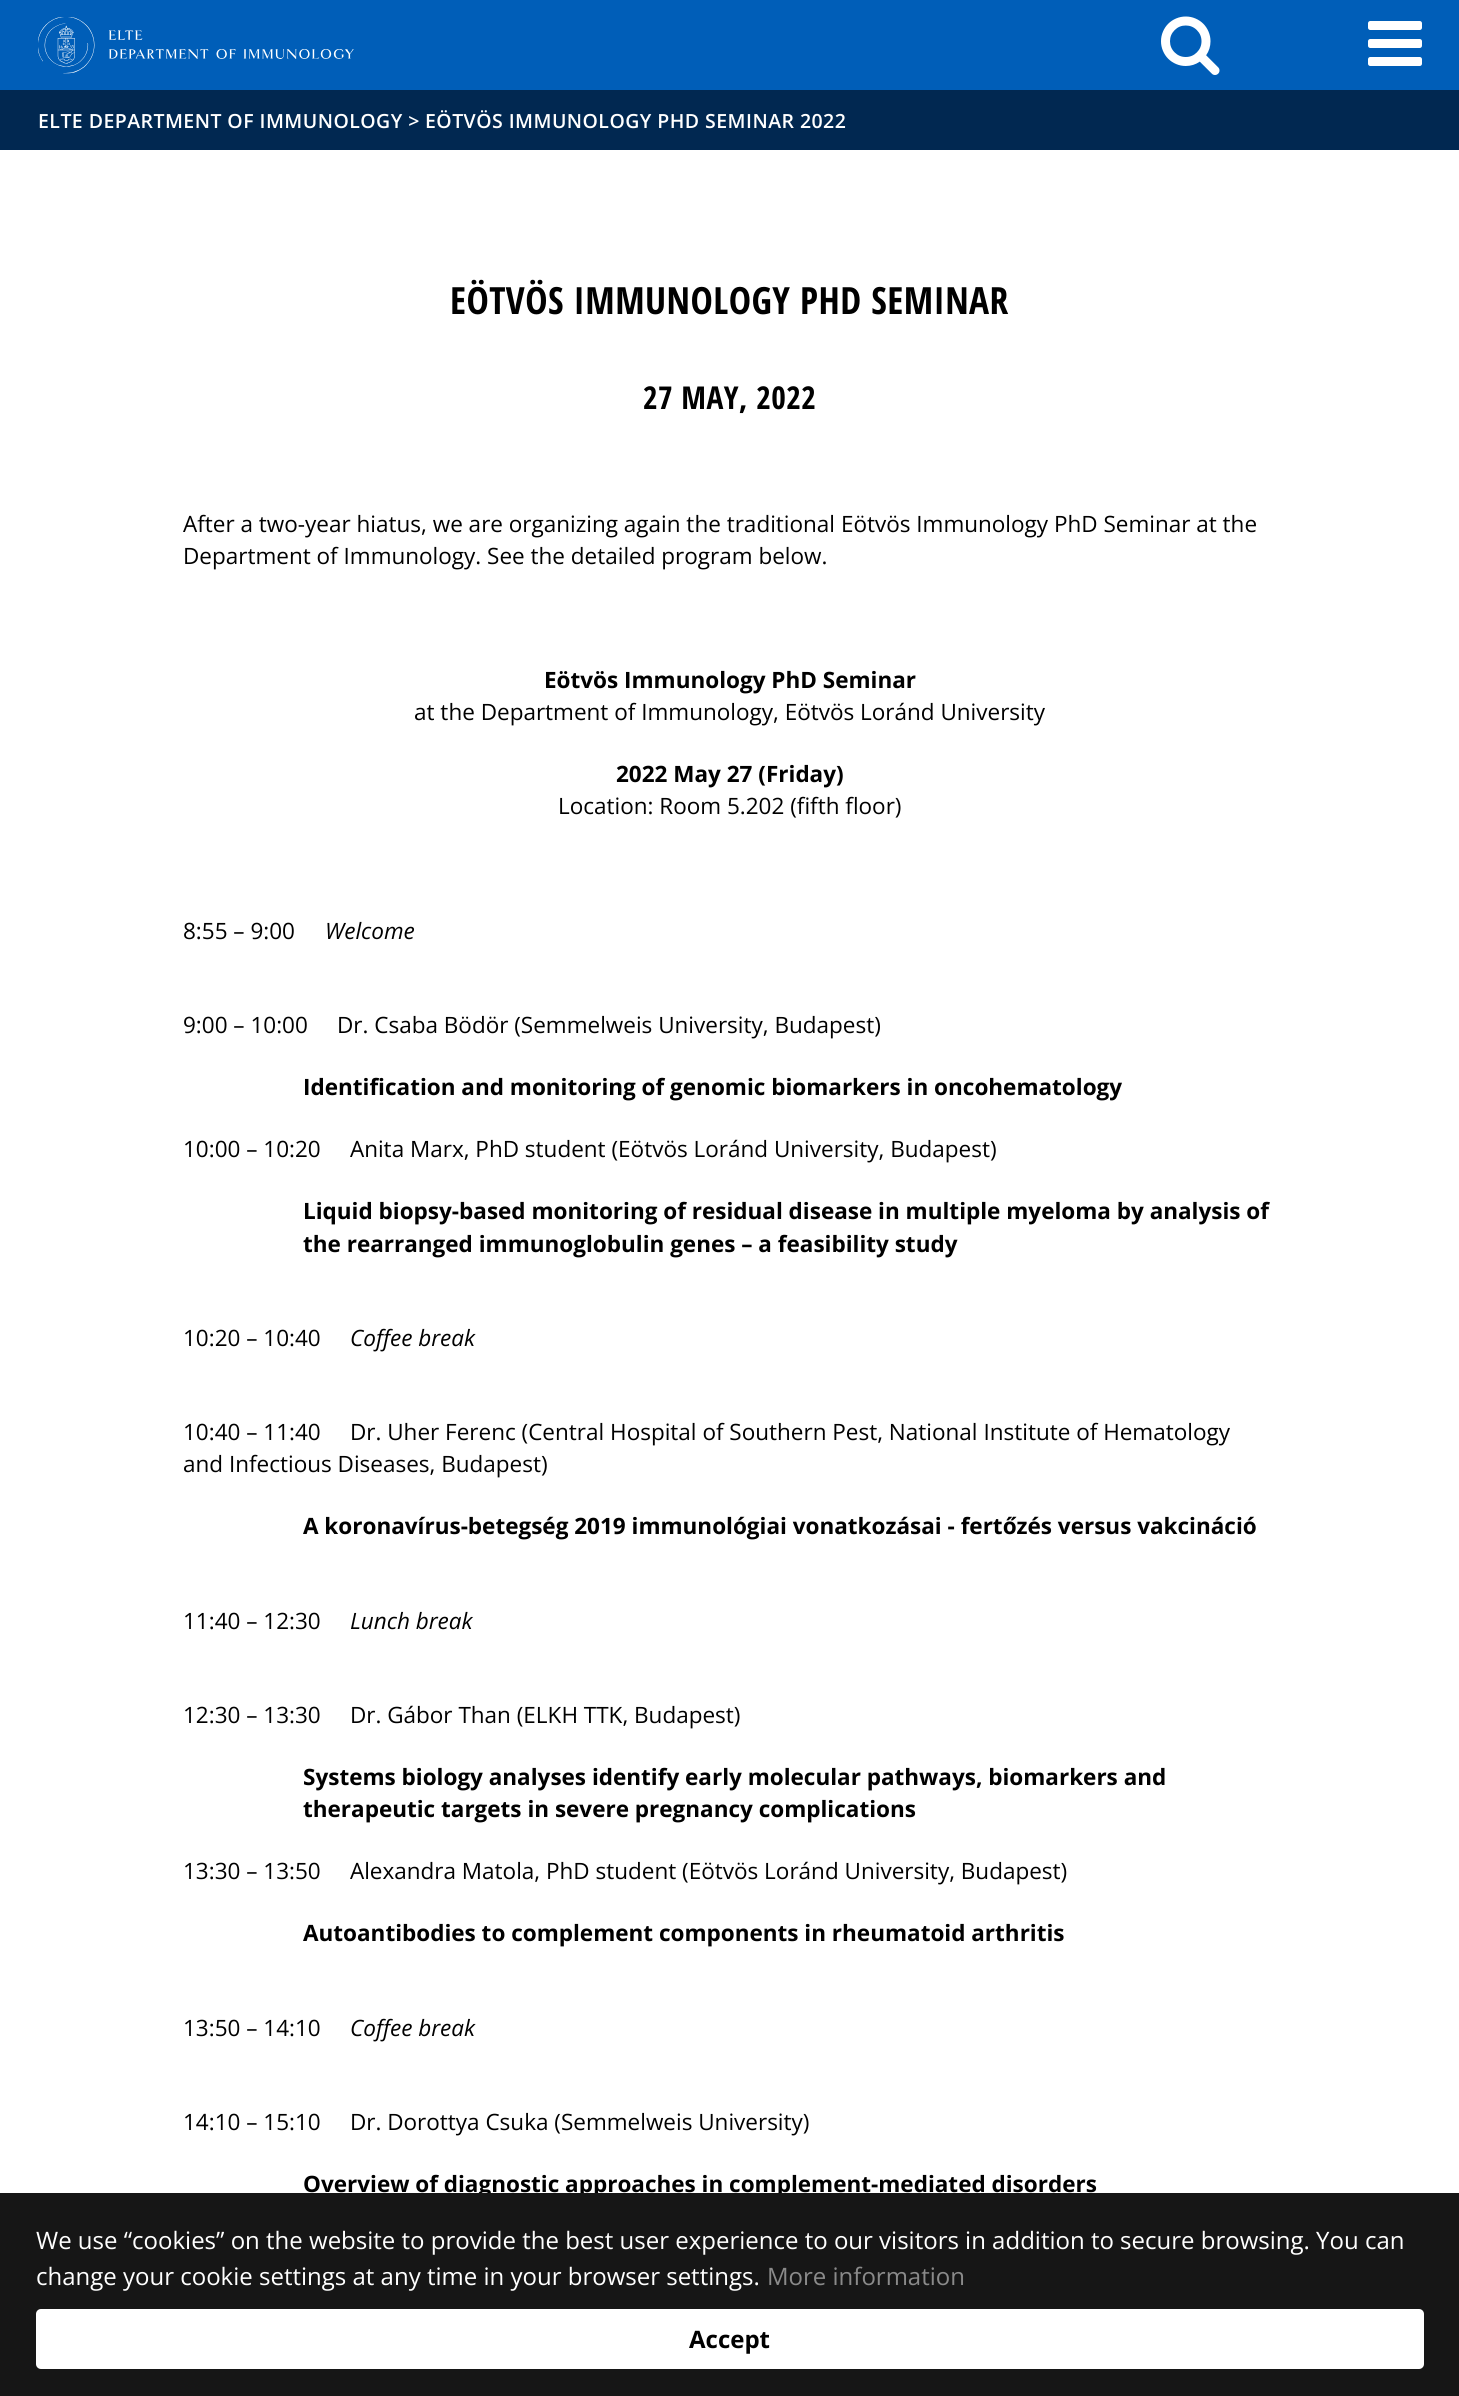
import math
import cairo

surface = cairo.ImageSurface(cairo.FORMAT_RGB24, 1459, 2396)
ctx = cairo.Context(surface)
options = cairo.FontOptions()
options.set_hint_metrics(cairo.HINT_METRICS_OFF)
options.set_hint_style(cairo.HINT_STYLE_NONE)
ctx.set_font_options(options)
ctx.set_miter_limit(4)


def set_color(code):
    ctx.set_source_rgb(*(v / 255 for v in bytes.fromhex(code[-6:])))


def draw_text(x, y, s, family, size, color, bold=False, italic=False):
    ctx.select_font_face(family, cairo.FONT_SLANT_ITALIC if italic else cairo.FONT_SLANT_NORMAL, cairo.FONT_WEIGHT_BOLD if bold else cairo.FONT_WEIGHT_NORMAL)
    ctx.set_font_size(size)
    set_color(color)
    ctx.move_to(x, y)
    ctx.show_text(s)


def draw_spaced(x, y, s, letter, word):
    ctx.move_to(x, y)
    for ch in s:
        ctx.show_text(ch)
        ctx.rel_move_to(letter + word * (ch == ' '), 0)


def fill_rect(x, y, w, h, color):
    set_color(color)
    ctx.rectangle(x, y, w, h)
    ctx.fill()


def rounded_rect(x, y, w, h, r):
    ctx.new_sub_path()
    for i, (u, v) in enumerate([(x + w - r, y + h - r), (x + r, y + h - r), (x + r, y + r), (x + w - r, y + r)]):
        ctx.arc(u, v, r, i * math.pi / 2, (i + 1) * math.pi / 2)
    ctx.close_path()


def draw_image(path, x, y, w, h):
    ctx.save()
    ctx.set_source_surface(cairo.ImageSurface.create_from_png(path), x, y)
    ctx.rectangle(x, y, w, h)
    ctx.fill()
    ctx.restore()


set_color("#ffffff")
ctx.paint()
fill_rect(0, 0, 1459, 90, "#005eb8")
draw_image("assets/img1.png", 38, 17, 316, 57)
draw_image("assets/img2.png", 1161, 16, 59, 59)
draw_image("assets/img3.png", 1368, 21, 54, 45)
fill_rect(0, 90, 1459, 60, "#012851")
ctx.select_font_face("Open Sans SemiBold")
ctx.set_font_size(19.5)
set_color("#ffffff")
draw_spaced(38, 128, "ELTE DEPARTMENT OF IMMUNOLOGY >", 0.45, 0)
draw_spaced(425, 128, "EÖTVÖS IMMUNOLOGY PHD SEMINAR 2022", 0.45, 0)
ctx.select_font_face("Open Sans Condensed", cairo.FONT_SLANT_NORMAL, cairo.FONT_WEIGHT_BOLD)
ctx.set_font_size(37.5)
set_color("#000000")
draw_spaced(450, 314, "EÖTVÖS IMMUNOLOGY PHD SEMINAR", 0.45, 0)
ctx.set_font_size(31.5)
draw_spaced(643, 409, "27 MAY, 2022", 0.45, 0)
draw_text(183, 532, "After a two-year hiatus, we are organizing again the traditional Eötvös Immunology PhD Seminar at the", "Open Sans", 22.5, "#000000")
draw_text(183, 564, "Department of Immunology. See the detailed program below.", "Open Sans", 22.5, "#000000")
draw_text(544, 688, "Eötvös Immunology PhD Seminar", "Open Sans", 22.5, "#000000", bold=True)
draw_text(414, 720, "at the Department of Immunology, Eötvös Loránd University", "Open Sans", 22.5, "#000000")
draw_text(616, 782, "2022 May 27 (Friday)", "Open Sans", 22.5, "#000000", bold=True)
draw_text(558, 814, "Location: Room 5.202 (fifth floor)", "Open Sans", 22.5, "#000000")
draw_text(183, 939, "8:55 – 9:00", "Open Sans", 22.5, "#000000")
draw_text(325, 939, "Welcome", "Open Sans", 22.5, "#000000", italic=True)
draw_text(183, 1033, "9:00 – 10:00     Dr. Csaba Bödör (Semmelweis University, Budapest)", "Open Sans", 22.5, "#000000")
draw_text(303, 1095, "Identification and monitoring of genomic biomarkers in oncohematology", "Open Sans", 22.5, "#000000", bold=True)
draw_text(183, 1157, "10:00 – 10:20     Anita Marx, PhD student (Eötvös Loránd University, Budapest)", "Open Sans", 22.5, "#000000")
draw_text(303, 1219, "Liquid biopsy-based monitoring of residual disease in multiple myeloma by analysis of", "Open Sans", 22.5, "#000000", bold=True)
draw_text(303, 1252, "the rearranged immunoglobulin genes – a feasibility study", "Open Sans", 22.5, "#000000", bold=True)
draw_text(183, 1346, "10:20 – 10:40", "Open Sans", 22.5, "#000000")
draw_text(350, 1346, "Coffee break", "Open Sans", 22.5, "#000000", italic=True)
draw_text(183, 1440, "10:40 – 11:40     Dr. Uher Ferenc (Central Hospital of Southern Pest, National Institute of Hematology", "Open Sans", 22.5, "#000000")
draw_text(183, 1472, "and Infectious Diseases, Budapest)", "Open Sans", 22.5, "#000000")
draw_text(303, 1534, "A koronavírus-betegség 2019 immunológiai vonatkozásai - fertőzés versus vakcináció", "Open Sans", 22.5, "#000000", bold=True)
draw_text(183, 1629, "11:40 – 12:30", "Open Sans", 22.5, "#000000")
draw_text(350, 1629, "Lunch break", "Open Sans", 22.5, "#000000", italic=True)
draw_text(183, 1723, "12:30 – 13:30     Dr. Gábor Than (ELKH TTK, Budapest)", "Open Sans", 22.5, "#000000")
draw_text(303, 1785, "Systems biology analyses identify early molecular pathways, biomarkers and", "Open Sans", 22.5, "#000000", bold=True)
draw_text(303, 1817, "therapeutic targets in severe pregnancy complications", "Open Sans", 22.5, "#000000", bold=True)
draw_text(183, 1879, "13:30 – 13:50     Alexandra Matola, PhD student (Eötvös Loránd University, Budapest)", "Open Sans", 22.5, "#000000")
draw_text(303, 1941, "Autoantibodies to complement components in rheumatoid arthritis", "Open Sans", 22.5, "#000000", bold=True)
draw_text(183, 2036, "13:50 – 14:10", "Open Sans", 22.5, "#000000")
draw_text(350, 2036, "Coffee break", "Open Sans", 22.5, "#000000", italic=True)
draw_text(183, 2130, "14:10 – 15:10     Dr. Dorottya Csuka (Semmelweis University)", "Open Sans", 22.5, "#000000")
draw_text(303, 2192, "Overview of diagnostic approaches in complement-mediated disorders", "Open Sans", 22.5, "#000000", bold=True)
fill_rect(0, 2193, 1459, 203, "#161616")
draw_text(36, 2249, "We use “cookies” on the website to provide the best user experience to our visitors in addition to secure browsing. You can", "Open Sans", 24, "#ffffff")
draw_text(36, 2285, "change your cookie settings at any time in your browser settings.", "Open Sans", 24, "#ffffff")
draw_text(767, 2285, "More information", "Open Sans", 24, "#8a8a8a")
set_color("#ffffff")
rounded_rect(36, 2309, 1388, 60, 5)
ctx.fill()
draw_text(689, 2348, "Accept", "Open Sans", 24, "#000000", bold=True)
surface.write_to_png("output.png")
